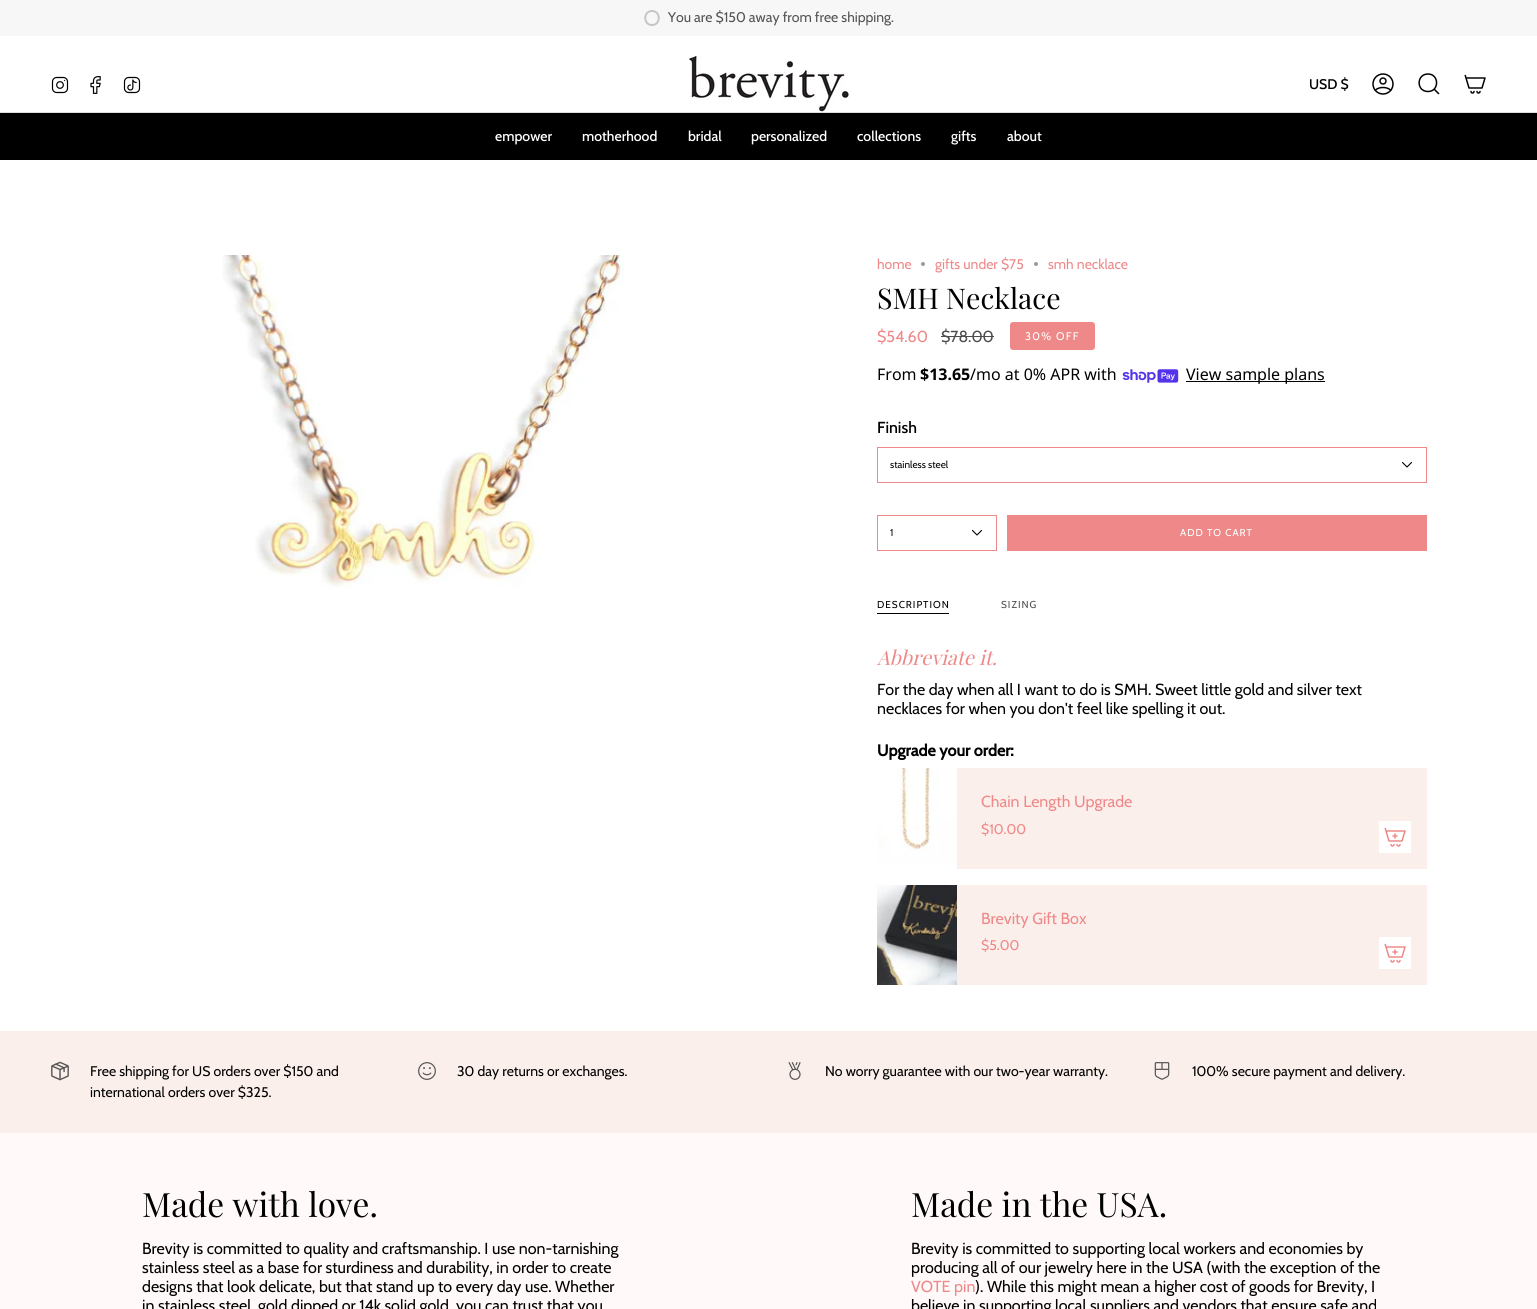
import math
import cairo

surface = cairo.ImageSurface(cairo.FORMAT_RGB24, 1537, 1309)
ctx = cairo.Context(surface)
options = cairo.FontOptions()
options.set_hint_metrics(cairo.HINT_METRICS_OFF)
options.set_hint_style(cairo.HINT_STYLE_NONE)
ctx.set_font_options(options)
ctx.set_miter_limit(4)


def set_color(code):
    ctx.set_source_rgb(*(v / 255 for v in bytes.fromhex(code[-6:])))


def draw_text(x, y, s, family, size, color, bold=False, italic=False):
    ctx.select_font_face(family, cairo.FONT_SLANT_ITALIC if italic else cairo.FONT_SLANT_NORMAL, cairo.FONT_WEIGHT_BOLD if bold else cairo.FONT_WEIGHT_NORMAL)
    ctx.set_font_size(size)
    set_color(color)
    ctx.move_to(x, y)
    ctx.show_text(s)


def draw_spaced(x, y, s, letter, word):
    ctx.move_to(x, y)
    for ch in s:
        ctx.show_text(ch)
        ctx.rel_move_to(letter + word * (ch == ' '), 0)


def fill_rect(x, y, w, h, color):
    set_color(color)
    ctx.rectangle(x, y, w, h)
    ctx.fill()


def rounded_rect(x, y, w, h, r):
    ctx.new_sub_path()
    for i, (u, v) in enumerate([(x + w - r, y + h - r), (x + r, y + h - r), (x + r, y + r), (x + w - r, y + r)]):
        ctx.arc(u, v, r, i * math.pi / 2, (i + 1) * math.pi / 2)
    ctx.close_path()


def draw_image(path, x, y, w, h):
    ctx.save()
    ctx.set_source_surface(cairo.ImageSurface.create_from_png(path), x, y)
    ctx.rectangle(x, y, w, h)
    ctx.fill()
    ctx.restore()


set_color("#ffffff")
ctx.paint()
fill_rect(0, 0, 1537, 36, "#f7f7f7")
ctx.new_path()
ctx.move_to(652, 11)
ctx.curve_to(643, 11, 643, 25, 652, 25)
ctx.curve_to(661, 25, 661, 11, 652, 11)
ctx.close_path()
set_color("#c6c6c6")
ctx.stroke()
draw_text(668, 22, "You are $150 away from free shipping.", "Cabin", 14, "#545454")
draw_image("assets/img1.png", 51, 76, 18, 18)
draw_image("assets/img2.png", 90, 76, 11, 18)
draw_image("assets/img3.png", 123, 76, 18, 18)
draw_image("assets/img4.png", 689, 56, 160, 56)
draw_text(1309, 89, "USD $", "Cabin Medium", 14, "#000000")
draw_image("assets/img5.png", 1372, 73, 22, 22)
ctx.new_path()
ctx.move_to(1428, 74)
ctx.curve_to(1439.5, 74, 1439.5, 92, 1427.5, 91.5)
ctx.curve_to(1416, 91, 1416.5, 74, 1428, 74)
ctx.close_path()
ctx.move_to(1434, 89)
ctx.line_to(1439, 94)
ctx.set_line_width(1.5)
ctx.stroke()
draw_image("assets/img6.png", 1464, 74, 22, 20)
fill_rect(0, 113, 1537, 47, "#000000")
fill_rect(0, 112, 1537, 1, "#dedede")
draw_text(495, 141, "empower", "Cabin Medium", 14, "#ffffff")
draw_text(582, 141, "motherhood", "Cabin Medium", 14, "#ffffff")
draw_text(688, 141, "bridal", "Cabin Medium", 14, "#ffffff")
draw_text(751, 141, "personalized", "Cabin Medium", 14, "#ffffff")
draw_text(857, 141, "collections", "Cabin Medium", 14, "#ffffff")
draw_text(951, 141, "gifts", "Cabin Medium", 14, "#ffffff")
draw_text(1007, 141, "about", "Cabin Medium", 14, "#ffffff")
draw_image("assets/img7.png", 222, 255, 402, 333)
draw_text(877, 269, "home", "Cabin", 14, "#ef8888")
set_color("#999999")
ctx.new_path()
ctx.arc(923, 264, 2, 0, 2 * math.pi)
ctx.fill()
draw_text(935, 269, "gifts under $75", "Cabin", 14, "#ef8888")
set_color("#999999")
ctx.new_path()
ctx.arc(1036, 264, 2, 0, 2 * math.pi)
ctx.fill()
draw_text(1048, 269, "smh necklace", "Cabin", 14, "#ef8888")
draw_text(877, 309, "SMH Necklace", "Playfair Display", 28.5, "#000000")
draw_text(877, 342, "$54.60", "Cabin", 16, "#ef8888")
draw_text(941, 342, "$78.00", "Cabin", 16, "#4d4d4d")
fill_rect(941, 336, 53, 1, "#4d4d4d")
set_color("#ef8888")
rounded_rect(1010, 322, 85, 28, 3)
ctx.fill()
ctx.set_font_size(11)
set_color("#ffffff")
draw_spaced(1025, 340, "30% OFF", 1.25, 0)
draw_text(877, 380, "From", "Noto Sans", 16, "#000000")
draw_text(920, 380, "$13.65", "Noto Sans", 16, "#000000", bold=True)
draw_text(970, 380, "/mo at 0% APR with", "Noto Sans", 16, "#000000")
draw_image("assets/img8.png", 1122, 369, 57, 14)
fill_rect(1186, 381, 139, 1, "#000000")
draw_text(1186, 380, "View sample plans", "Noto Sans", 16, "#000000")
draw_text(877, 433, "Finish", "Cabin Medium", 16, "#000000")
ctx.rectangle(877.5, 447.5, 549, 35)
set_color("#ef8888")
ctx.set_line_width(1)
ctx.stroke()
draw_text(890, 468, "stainless steel", "Cabin", 10, "#000000")
ctx.new_path()
ctx.move_to(1402.5, 462.5)
ctx.line_to(1407, 467)
ctx.line_to(1411.5, 462.5)
ctx.set_line_width(1.1)
ctx.set_line_cap(cairo.LINE_CAP_ROUND)
ctx.set_line_join(cairo.LINE_JOIN_ROUND)
ctx.stroke()
ctx.rectangle(877.5, 515.5, 119, 35)
set_color("#ef8888")
ctx.set_line_width(1)
ctx.set_line_cap(cairo.LINE_CAP_BUTT)
ctx.set_line_join(cairo.LINE_JOIN_MITER)
ctx.stroke()
draw_text(890, 536, "1", "Cabin", 10, "#000000")
ctx.new_path()
ctx.move_to(972.5, 530.5)
ctx.line_to(977, 535)
ctx.line_to(981.5, 530.5)
ctx.set_line_width(1.1)
ctx.set_line_cap(cairo.LINE_CAP_ROUND)
ctx.set_line_join(cairo.LINE_JOIN_ROUND)
ctx.stroke()
fill_rect(1007, 515, 420, 36, "#ef8888")
set_color("#ffffff")
draw_spaced(1180, 536, "ADD TO CART", 1, 0)
set_color("#000000")
draw_spaced(877, 608, "DESCRIPTION", 1, 0)
fill_rect(877, 613, 72, 1, "#000000")
set_color("#4d4d4d")
draw_spaced(1001, 608, "SIZING", 1, 0)
draw_text(877, 665, "Abbreviate it.", "Playfair Display", 20, "#ef8888", italic=True)
draw_text(877, 695, "For the day when all I want to do is SMH. Sweet little gold and silver text", "Cabin", 16, "#000000")
draw_text(877, 714, "necklaces for when you don't feel like spelling it out.", "Cabin", 16, "#000000")
draw_text(877, 756, "Upgrade your order:", "Cabin", 16, "#000000", bold=True)
fill_rect(957, 768, 470, 101, "#fbefeb")
draw_image("assets/img9.png", 877, 768, 80, 101)
draw_text(981, 807, "Chain Length Upgrade", "Cabin", 16, "#ef8888")
draw_text(981, 834, "$10.00", "Cabin", 14, "#ef8888")
fill_rect(1379, 821, 32, 32, "#ffffff")
draw_image("assets/img10.png", 1384, 827, 22, 20)
fill_rect(957, 885, 470, 100, "#fbefeb")
draw_image("assets/img11.png", 877, 885, 80, 100)
draw_text(981, 924, "Brevity Gift Box", "Cabin", 16, "#ef8888")
draw_text(981, 950, "$5.00", "Cabin", 14, "#ef8888")
fill_rect(1379, 937, 32, 32, "#ffffff")
draw_image("assets/img10.png", 1384, 943, 22, 20)
fill_rect(0, 1031, 1537, 102, "#fbefeb")
draw_image("assets/img12.png", 51, 1061, 18, 20)
draw_text(90, 1076, "Free shipping for US orders over $150 and", "Cabin", 14, "#000000")
draw_text(90, 1097, "international orders over $325.", "Cabin", 14, "#000000")
draw_image("assets/img13.png", 418, 1062, 18, 18)
draw_text(457, 1076, "30 day returns or exchanges.", "Cabin", 14, "#000000")
draw_image("assets/img14.png", 788, 1062, 13, 18)
draw_text(825, 1076, "No worry guarantee with our two-year warranty.", "Cabin", 14, "#000000")
draw_image("assets/img15.png", 1154, 1062, 16, 18)
draw_text(1192, 1076, "100% secure payment and delivery.", "Cabin", 14, "#000000")
fill_rect(0, 1133, 1537, 176, "#fffaf9")
draw_text(142, 1217, "Made with love.", "Playfair Display", 33.5, "#000000")
draw_text(142, 1254, "Brevity is committed to quality and craftsmanship. I use non-tarnishing", "Cabin", 16, "#000000")
draw_text(142, 1273, "stainless steel as a base for sturdiness and durability, in order to create", "Cabin", 16, "#000000")
draw_text(142, 1292, "designs that look delicate, but that stand up to every day use. Whether", "Cabin", 16, "#000000")
draw_text(142, 1311, "in stainless steel, gold dipped or 14k solid gold, you can trust that you", "Cabin", 16, "#000000")
draw_text(911, 1217, "Made in the USA.", "Playfair Display", 33.5, "#000000")
draw_text(911, 1254, "Brevity is committed to supporting local workers and economies by", "Cabin", 16, "#000000")
draw_text(911, 1273, "producing all of our jewelry here in the USA (with the exception of the", "Cabin", 16, "#000000")
draw_text(911, 1292, "VOTE pin", "Cabin", 16, "#ef8888")
draw_text(975, 1292, "). While this might mean a higher cost of goods for Brevity, I", "Cabin", 16, "#000000")
draw_text(911, 1311, "believe in supporting local suppliers and vendors that ensure safe and", "Cabin", 16, "#000000")
surface.write_to_png("output.png")
